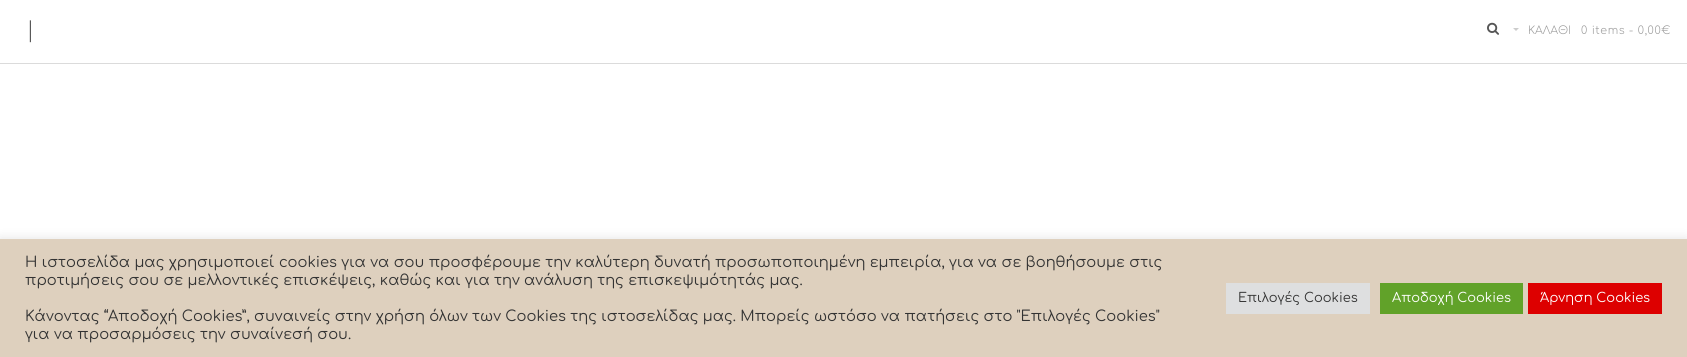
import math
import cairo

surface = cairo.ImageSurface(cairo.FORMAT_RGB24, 1687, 357)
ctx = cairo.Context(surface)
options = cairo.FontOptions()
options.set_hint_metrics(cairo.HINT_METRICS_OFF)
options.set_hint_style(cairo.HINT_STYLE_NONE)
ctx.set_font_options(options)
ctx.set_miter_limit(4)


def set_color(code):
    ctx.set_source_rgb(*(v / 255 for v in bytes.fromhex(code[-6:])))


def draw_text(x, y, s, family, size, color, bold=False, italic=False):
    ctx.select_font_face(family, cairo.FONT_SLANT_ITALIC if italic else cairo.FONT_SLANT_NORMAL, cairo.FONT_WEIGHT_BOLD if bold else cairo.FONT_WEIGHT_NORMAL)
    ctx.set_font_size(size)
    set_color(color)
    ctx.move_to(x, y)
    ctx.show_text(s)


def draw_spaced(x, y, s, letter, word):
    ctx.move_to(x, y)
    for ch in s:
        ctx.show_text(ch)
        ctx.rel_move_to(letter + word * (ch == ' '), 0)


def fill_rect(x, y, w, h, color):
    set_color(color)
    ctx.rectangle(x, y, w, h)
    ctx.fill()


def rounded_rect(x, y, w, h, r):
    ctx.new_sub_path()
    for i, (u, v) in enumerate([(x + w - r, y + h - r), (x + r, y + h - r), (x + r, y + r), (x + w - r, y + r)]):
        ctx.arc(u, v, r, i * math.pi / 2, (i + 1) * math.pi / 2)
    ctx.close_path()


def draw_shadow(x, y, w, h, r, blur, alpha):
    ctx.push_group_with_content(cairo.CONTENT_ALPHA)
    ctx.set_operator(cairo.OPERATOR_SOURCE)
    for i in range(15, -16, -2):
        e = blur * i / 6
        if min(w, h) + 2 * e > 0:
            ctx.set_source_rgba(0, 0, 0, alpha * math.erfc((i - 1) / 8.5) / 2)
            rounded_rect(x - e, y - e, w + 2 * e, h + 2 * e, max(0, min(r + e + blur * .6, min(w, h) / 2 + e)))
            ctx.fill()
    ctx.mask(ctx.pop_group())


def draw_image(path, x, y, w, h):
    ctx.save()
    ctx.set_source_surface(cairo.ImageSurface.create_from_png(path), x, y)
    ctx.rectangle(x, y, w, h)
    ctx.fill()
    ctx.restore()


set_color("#ffffff")
ctx.paint()
fill_rect(0, 63, 1687, 1, "#dbdbdb")
draw_text(28, 37, "|", "Liberation Serif", 24, "#595959")
draw_image("assets/img1.png", 1487, 22, 12, 13)
set_color("#cccccc")
ctx.new_path()
ctx.move_to(1513, 28)
ctx.line_to(1519, 28)
ctx.line_to(1516, 31)
ctx.close_path()
ctx.fill()
draw_text(1528, 34, "ΚΑΛΑΘΙ", "Comfortaa Light", 11, "#999999")
draw_spaced(1581, 34, "0 items - 0,00€", 0.6, 0)
set_color("#acabab")
draw_shadow(0, 238, 1687, 118, 0, 5, 0.3)
fill_rect(0, 239, 1687, 118, "#ded0be")
draw_text(25, 267, "Η ιστοσελίδα μας χρησιμοποιεί cookies για να σου προσφέρουμε την καλύτερη δυνατή προσωποποιημένη εμπειρία, για να σε βοηθήσουμε στις", "Comfortaa", 14.67, "#333333")
draw_text(25, 285, "προτιμήσεις σου σε μελλοντικές επισκέψεις, καθώς και για την ανάλυση της επισκεψιμότητάς μας.", "Comfortaa", 14.67, "#333333")
draw_text(25, 321, "Κάνοντας “Αποδοχή Cookies”, συναινείς στην χρήση όλων των Cookies της ιστοσελίδας μας. Μπορείς ωστόσο να πατήσεις στο \"Επιλογές Cookies\"", "Comfortaa", 14.67, "#333333")
draw_text(25, 339, "για να προσαρμόσεις την συναίνεσή σου.", "Comfortaa", 14.67, "#333333")
fill_rect(1226, 283, 144, 31, "#dedfe0")
draw_text(1238, 302, "Επιλογές Cookies", "Comfortaa", 13, "#333333")
fill_rect(1380, 283, 143, 31, "#61a229")
draw_text(1392, 302, "Αποδοχή Cookies", "Comfortaa", 13, "#ffffff")
fill_rect(1528, 283, 134, 31, "#dd0000")
draw_text(1540, 302, "Άρνηση Cookies", "Comfortaa", 13, "#ffffff")
surface.write_to_png("output.png")
